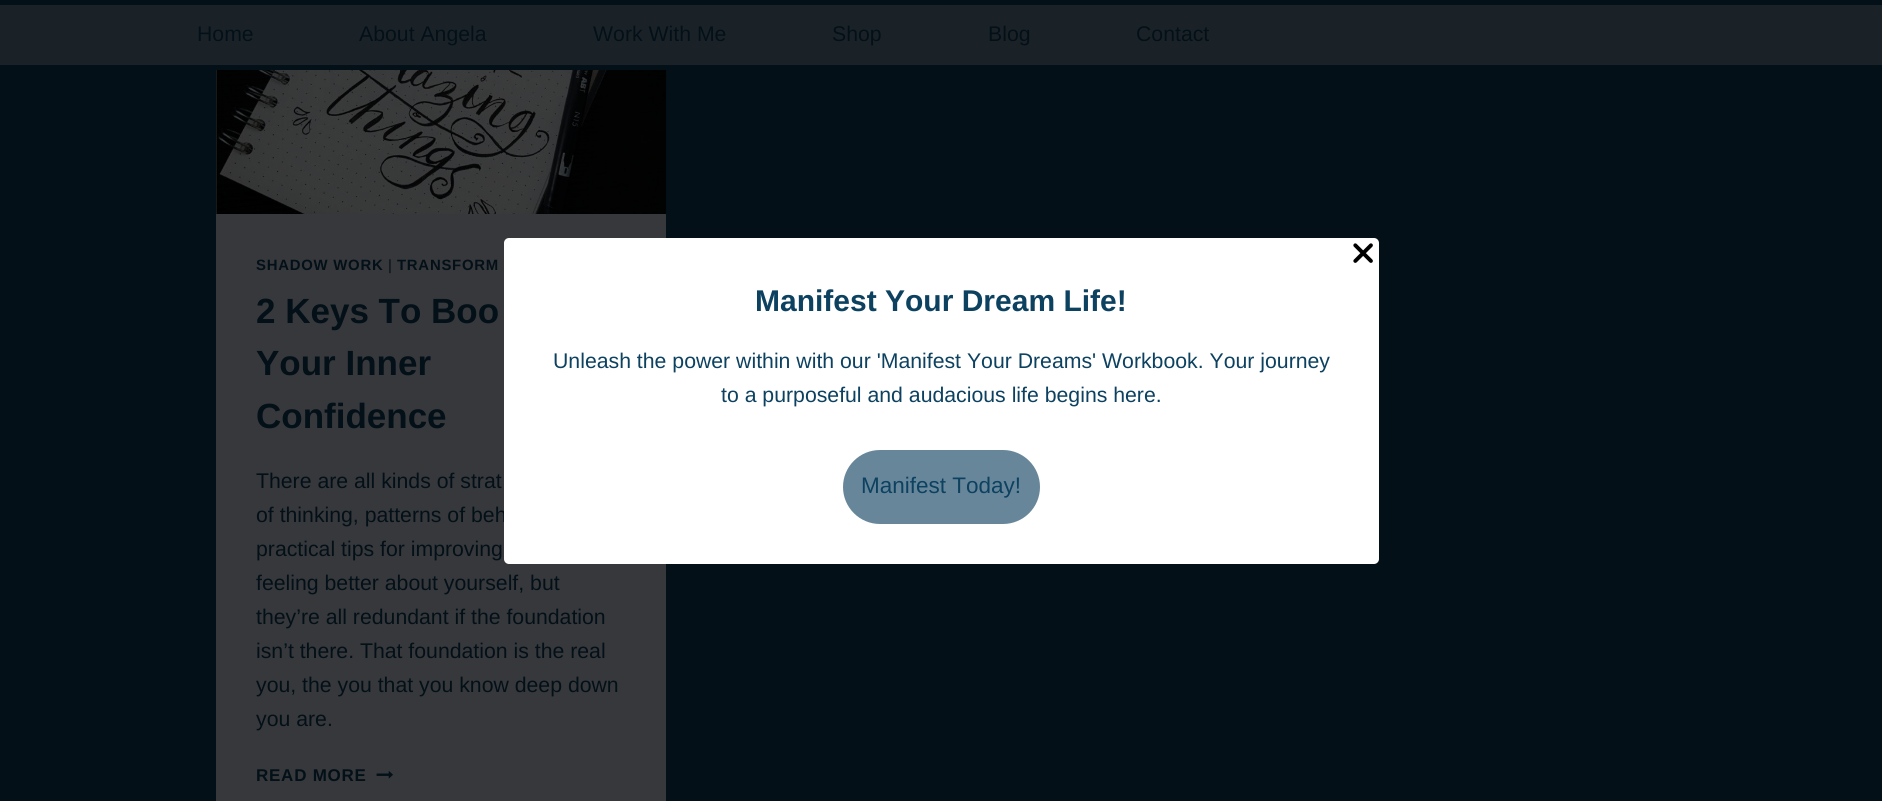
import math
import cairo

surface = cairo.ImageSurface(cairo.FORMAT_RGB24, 1882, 801)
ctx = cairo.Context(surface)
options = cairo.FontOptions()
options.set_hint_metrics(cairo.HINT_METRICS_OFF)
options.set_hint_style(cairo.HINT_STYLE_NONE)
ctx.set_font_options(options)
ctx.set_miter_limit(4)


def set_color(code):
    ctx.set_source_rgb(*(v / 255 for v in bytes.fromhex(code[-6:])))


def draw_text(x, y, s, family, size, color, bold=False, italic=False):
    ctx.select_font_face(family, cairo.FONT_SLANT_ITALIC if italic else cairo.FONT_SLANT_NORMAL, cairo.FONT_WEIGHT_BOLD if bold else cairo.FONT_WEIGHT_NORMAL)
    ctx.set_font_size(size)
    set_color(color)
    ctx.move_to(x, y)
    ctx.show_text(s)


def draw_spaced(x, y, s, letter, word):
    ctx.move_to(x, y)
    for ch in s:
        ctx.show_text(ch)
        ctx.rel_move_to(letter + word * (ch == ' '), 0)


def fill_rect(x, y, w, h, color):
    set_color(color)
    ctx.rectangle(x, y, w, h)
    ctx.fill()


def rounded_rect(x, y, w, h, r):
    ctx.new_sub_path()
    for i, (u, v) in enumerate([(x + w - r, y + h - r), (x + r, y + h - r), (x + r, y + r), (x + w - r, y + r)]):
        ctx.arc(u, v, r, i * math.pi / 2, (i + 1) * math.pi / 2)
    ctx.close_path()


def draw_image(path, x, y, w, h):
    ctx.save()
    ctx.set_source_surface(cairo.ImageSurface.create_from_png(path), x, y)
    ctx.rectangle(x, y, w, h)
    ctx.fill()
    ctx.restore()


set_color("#031018")
ctx.paint()
fill_rect(0, 5, 1882, 60, "#1a2227")
draw_text(197, 41, "Home", "Liberation Sans", 21.25, "#031018")
draw_text(359, 41, "About Angela", "Liberation Sans", 21.25, "#031018")
draw_text(593, 41, "Work With Me", "Liberation Sans", 21.25, "#031018")
draw_text(832, 41, "Shop", "Liberation Sans", 21.25, "#031018")
draw_text(988, 41, "Blog", "Liberation Sans", 21.25, "#031018")
draw_text(1136, 41, "Contact", "Liberation Sans", 21.25, "#031018")
fill_rect(216, 70, 450, 731, "#36383b")
draw_image("assets/img1.png", 216, 70, 451, 144)
ctx.select_font_face("Liberation Sans", cairo.FONT_SLANT_NORMAL, cairo.FONT_WEIGHT_BOLD)
ctx.set_font_size(14.9)
set_color("#031018")
draw_spaced(256, 270, "SHADOW WORK", 0.75, 0)
ctx.select_font_face("Liberation Sans")
draw_spaced(388, 270, "|", 0.75, 0)
ctx.select_font_face("Liberation Sans", cairo.FONT_SLANT_NORMAL, cairo.FONT_WEIGHT_BOLD)
draw_spaced(397, 270, "TRANSFORM", 0.75, 0)
draw_text(256, 323, "2 Keys To Boo", "Liberation Sans", 35, "#031018", bold=True)
draw_text(256, 375, "Your Inner", "Liberation Sans", 35, "#031018", bold=True)
draw_text(256, 428, "Confidence", "Liberation Sans", 35, "#031018", bold=True)
draw_text(256, 488, "There are all kinds of strat", "Liberation Sans", 21.25, "#031018")
draw_text(256, 522, "of thinking, patterns of beh", "Liberation Sans", 21.25, "#031018")
draw_text(256, 556, "practical tips for improving", "Liberation Sans", 21.25, "#031018")
draw_text(256, 590, "feeling better about yourself, but", "Liberation Sans", 21.25, "#031018")
draw_text(256, 624, "they’re all redundant if the foundation", "Liberation Sans", 21.25, "#031018")
draw_text(256, 658, "isn’t there. That foundation is the real", "Liberation Sans", 21.25, "#031018")
draw_text(256, 692, "you, the you that you know deep down", "Liberation Sans", 21.25, "#031018")
draw_text(256, 726, "you are.", "Liberation Sans", 21.25, "#031018")
ctx.select_font_face("Liberation Sans", cairo.FONT_SLANT_NORMAL, cairo.FONT_WEIGHT_BOLD)
ctx.set_font_size(17)
draw_spaced(256, 781, "READ MORE", 0.75, 0)
draw_image("assets/img2.png", 376, 771, 17, 8)
set_color("#ffffff")
rounded_rect(504, 238, 875, 326, 5)
ctx.fill()
draw_image("assets/img3.png", 1353, 243, 20, 20)
draw_text(755, 311, "Manifest Your Dream Life!", "Liberation Sans", 30, "#0c4160", bold=True)
draw_text(553, 368, "Unleash the power within with our 'Manifest Your Dreams' Workbook. Your journey", "Liberation Sans", 21.25, "#0c4160")
draw_text(721, 402, "to a purposeful and audacious life begins here.", "Liberation Sans", 21.25, "#0c4160")
set_color("#68869a")
rounded_rect(843, 450, 197, 74, 37)
ctx.fill()
draw_text(861, 493, "Manifest Today!", "Liberation Sans", 22.5, "#0c4160")
surface.write_to_png("output.png")
